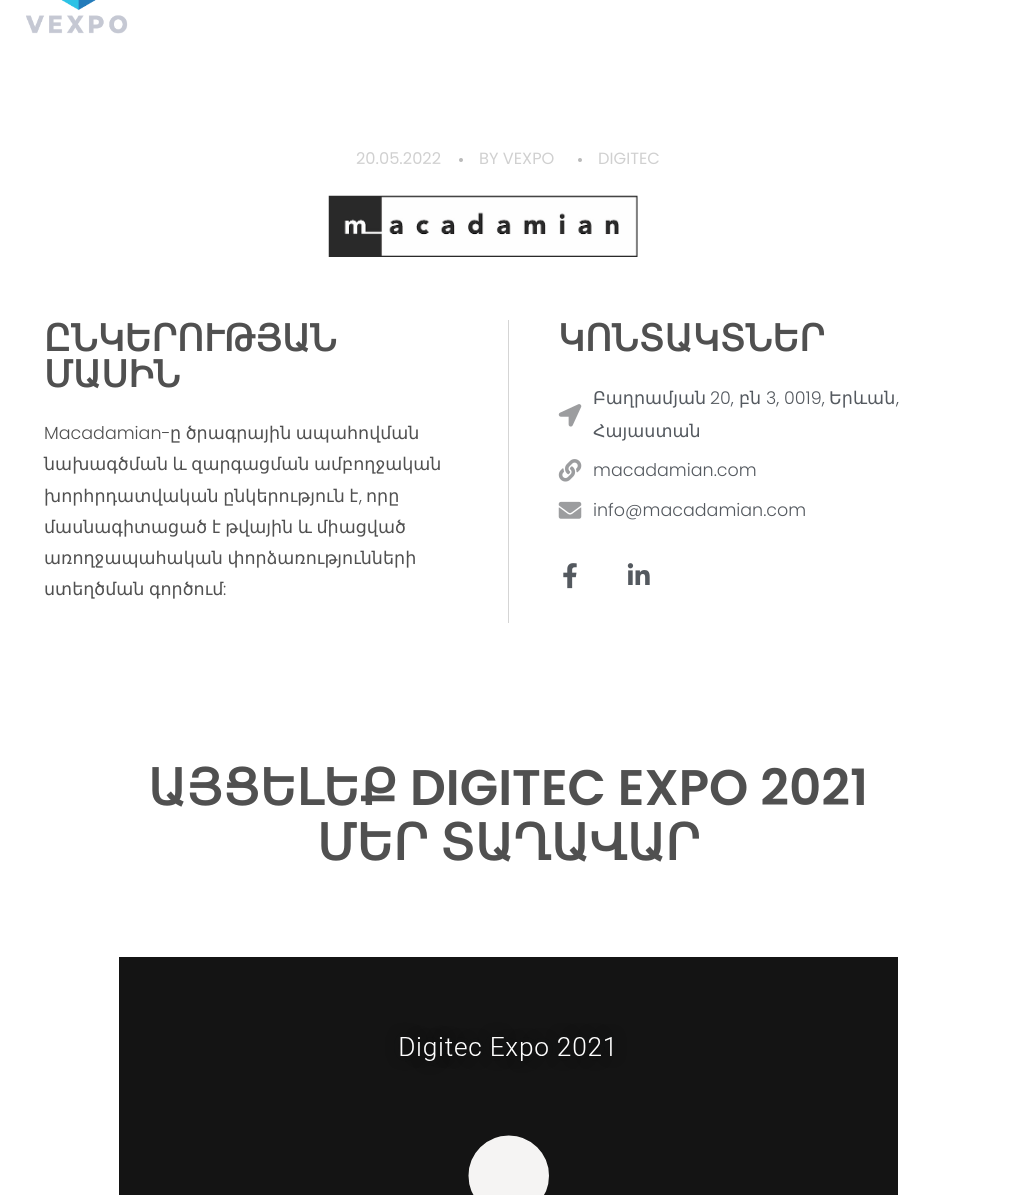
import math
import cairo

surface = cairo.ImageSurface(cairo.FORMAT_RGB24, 1016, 1195)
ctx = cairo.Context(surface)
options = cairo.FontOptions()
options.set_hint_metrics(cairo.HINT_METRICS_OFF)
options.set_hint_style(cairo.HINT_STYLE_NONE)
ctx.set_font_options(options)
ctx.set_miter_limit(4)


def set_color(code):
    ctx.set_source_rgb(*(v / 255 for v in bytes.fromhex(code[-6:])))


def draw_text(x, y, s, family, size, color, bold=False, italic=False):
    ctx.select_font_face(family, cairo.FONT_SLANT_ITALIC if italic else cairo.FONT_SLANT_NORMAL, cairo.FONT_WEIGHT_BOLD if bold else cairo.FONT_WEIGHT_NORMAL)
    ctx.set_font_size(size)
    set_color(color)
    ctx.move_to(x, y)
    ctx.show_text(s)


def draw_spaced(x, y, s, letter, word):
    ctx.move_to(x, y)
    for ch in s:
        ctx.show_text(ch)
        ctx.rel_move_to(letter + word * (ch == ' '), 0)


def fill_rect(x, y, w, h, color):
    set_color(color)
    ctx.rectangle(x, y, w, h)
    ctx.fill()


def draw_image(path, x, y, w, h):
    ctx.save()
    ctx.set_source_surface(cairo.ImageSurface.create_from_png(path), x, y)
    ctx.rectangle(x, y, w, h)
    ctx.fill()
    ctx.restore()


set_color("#ffffff")
ctx.paint()
draw_image("assets/img1.png", 26, 0, 102, 34)
draw_text(356, 164, "20.05.2022", "Poppins", 16.25, "#d0d0d0")
set_color("#bbbbbb")
ctx.new_path()
ctx.arc(461, 160, 2, 0, 2 * math.pi)
ctx.fill()
draw_text(479, 164, "BY VEXPO", "Poppins", 16.25, "#d0d0d0")
set_color("#bbbbbb")
ctx.new_path()
ctx.arc(580, 160, 2, 0, 2 * math.pi)
ctx.fill()
draw_text(598, 164, "DIGITEC", "Poppins", 16.25, "#d0d0d0")
draw_image("assets/img2.png", 328, 195, 310, 62)
fill_rect(508, 320, 1, 303, "#d5d5d5")
draw_text(44, 351, "ԸՆԿԵՐՈՒԹՅԱՆ", "DejaVu Sans", 36.75, "#505050", bold=True)
draw_text(44, 387, "ՄԱՍԻՆ", "DejaVu Sans", 36.75, "#505050", bold=True)
draw_text(44, 439, "Macadamian-", "Poppins Light", 17.5, "#505050")
ctx.select_font_face("DejaVu Sans")
draw_spaced(170, 439, "ը ծրագրային ապահովման", 0, -1)
draw_spaced(44, 470, "նախագծման և զարգացման ամբողջական", 0, -1)
draw_spaced(44, 502, "խորհրդատվական ընկերություն է", 0, -1)
draw_text(359, 502, ",", "Poppins Light", 17.5, "#505050")
draw_text(366, 502, "որը", "DejaVu Sans", 17.5, "#505050")
draw_spaced(44, 533, "մասնագիտացած է թվային և միացված", 0, -1)
draw_spaced(44, 564, "առողջապահական փորձառությունների", 0, -1)
draw_spaced(44, 595, "ստեղծման գործում", 0, -1)
draw_text(223, 595, ":", "Poppins Light", 17.5, "#505050")
draw_text(558, 351, "ԿՈՆՏԱԿՏՆԵՐ", "DejaVu Sans", 36.75, "#505050", bold=True)
draw_image("assets/img3.png", 558, 404, 24, 23)
draw_text(593, 404, "Բաղրամյան", "DejaVu Sans", 17.5, "#54595f")
draw_text(710, 404, "20,", "Poppins Light", 17.5, "#54595f")
draw_text(739, 404, "բն", "DejaVu Sans", 17.5, "#54595f")
draw_text(766, 404, "3, 0019,", "Poppins Light", 17.5, "#54595f")
draw_text(829, 404, "Երևան", "DejaVu Sans", 17.5, "#54595f")
draw_text(896, 404, ",", "Poppins Light", 17.5, "#54595f")
draw_text(593, 437, "Հայաստան", "DejaVu Sans", 17.5, "#54595f")
draw_image("assets/img4.png", 558, 459, 24, 23)
draw_text(593, 476, "macadamian.com", "Poppins Light", 17.5, "#54595f")
draw_image("assets/img5.png", 558, 501, 24, 18)
draw_text(593, 516, "info@macadamian.com", "Poppins Light", 17.5, "#54595f")
draw_image("assets/img6.png", 563, 563, 14, 26)
draw_image("assets/img7.png", 627, 563, 23, 22)
draw_text(148, 805, "ԱՅՑԵԼԵՔ", "DejaVu Sans", 50, "#505050", bold=True)
draw_text(410, 805, "DIGITEC EXPO 2021", "Poppins SemiBold", 50, "#505050")
ctx.select_font_face("DejaVu Sans", cairo.FONT_SLANT_NORMAL, cairo.FONT_WEIGHT_BOLD)
draw_spaced(317, 860, "ՄԵՐ ՏԱՂԱՎԱՐ", 0, -4)
draw_image("assets/img8.png", 119, 957, 779, 238)
surface.write_to_png("output.png")
